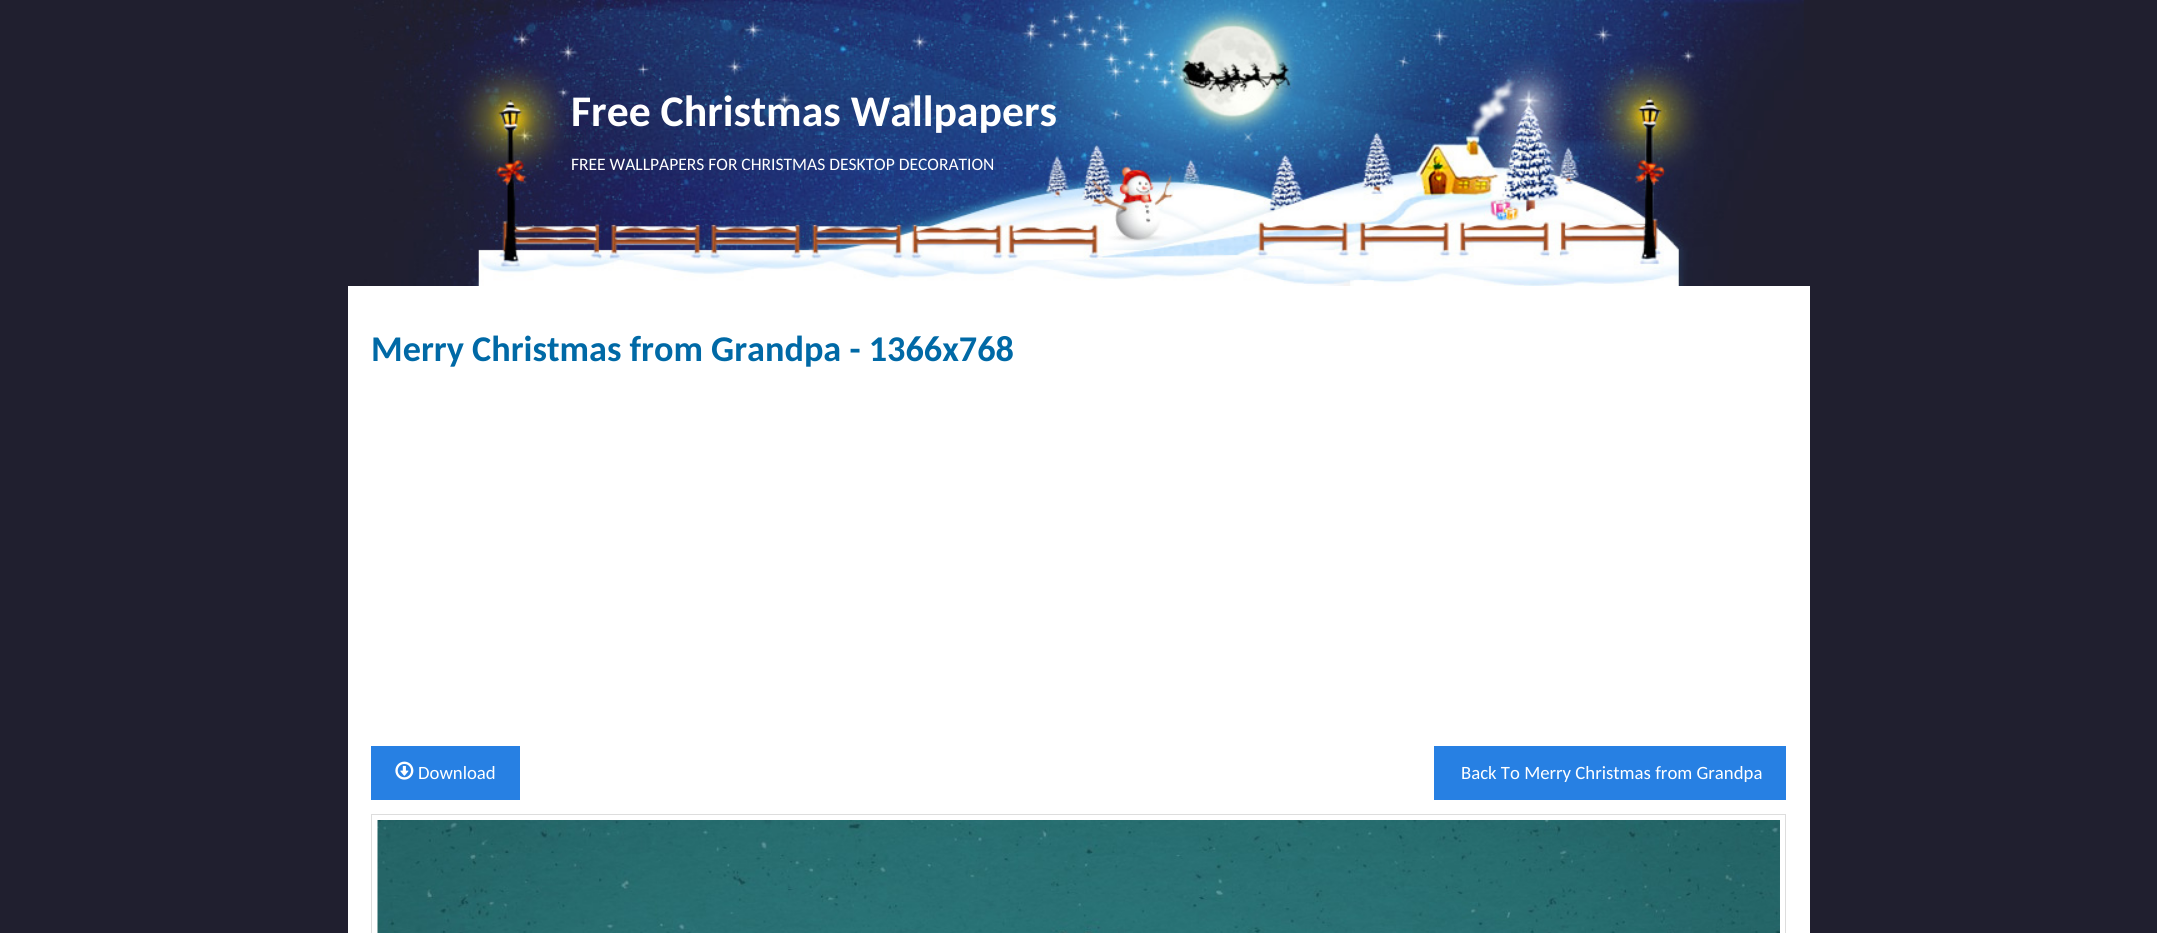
import math
import cairo

surface = cairo.ImageSurface(cairo.FORMAT_RGB24, 2157, 933)
ctx = cairo.Context(surface)
options = cairo.FontOptions()
options.set_hint_metrics(cairo.HINT_METRICS_OFF)
options.set_hint_style(cairo.HINT_STYLE_NONE)
ctx.set_font_options(options)
ctx.set_miter_limit(4)


def set_color(code):
    ctx.set_source_rgb(*(v / 255 for v in bytes.fromhex(code[-6:])))


def draw_text(x, y, s, family, size, color, bold=False, italic=False):
    ctx.select_font_face(family, cairo.FONT_SLANT_ITALIC if italic else cairo.FONT_SLANT_NORMAL, cairo.FONT_WEIGHT_BOLD if bold else cairo.FONT_WEIGHT_NORMAL)
    ctx.set_font_size(size)
    set_color(color)
    ctx.move_to(x, y)
    ctx.show_text(s)


def fill_rect(x, y, w, h, color):
    set_color(color)
    ctx.rectangle(x, y, w, h)
    ctx.fill()


def draw_image(path, x, y, w, h):
    ctx.save()
    ctx.set_source_surface(cairo.ImageSurface.create_from_png(path), x, y)
    ctx.rectangle(x, y, w, h)
    ctx.fill()
    ctx.restore()


set_color("#201f2f")
ctx.paint()
draw_image("assets/img1.png", 354, 0, 1450, 286)
draw_text(571, 126, "Free Christmas Wallpapers", "Carlito", 43.75, "#ffffff", bold=True)
draw_text(571, 170, "FREE WALLPAPERS FOR CHRISTMAS DESKTOP DECORATION", "Carlito", 17.5, "#ffffff")
fill_rect(348, 286, 1462, 647, "#ffffff")
draw_text(371, 361, "Merry Christmas from Grandpa - 1366x768", "Carlito", 36.25, "#0069a6", bold=True)
fill_rect(371, 746, 149, 54, "#2780e3")
draw_image("assets/img2.png", 395, 761, 19, 19)
draw_text(418, 779, "Download", "Carlito", 18.75, "#ffffff")
fill_rect(1434, 746, 352, 54, "#2780e3")
draw_text(1461, 779, "Back To Merry Christmas from Grandpa", "Carlito", 18.75, "#ffffff")
ctx.rectangle(371.5, 814.5, 1414, 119)
set_color("#dddddd")
ctx.set_line_width(1)
ctx.stroke()
draw_image("assets/img3.png", 377, 820, 1403, 113)
surface.write_to_png("output.png")
